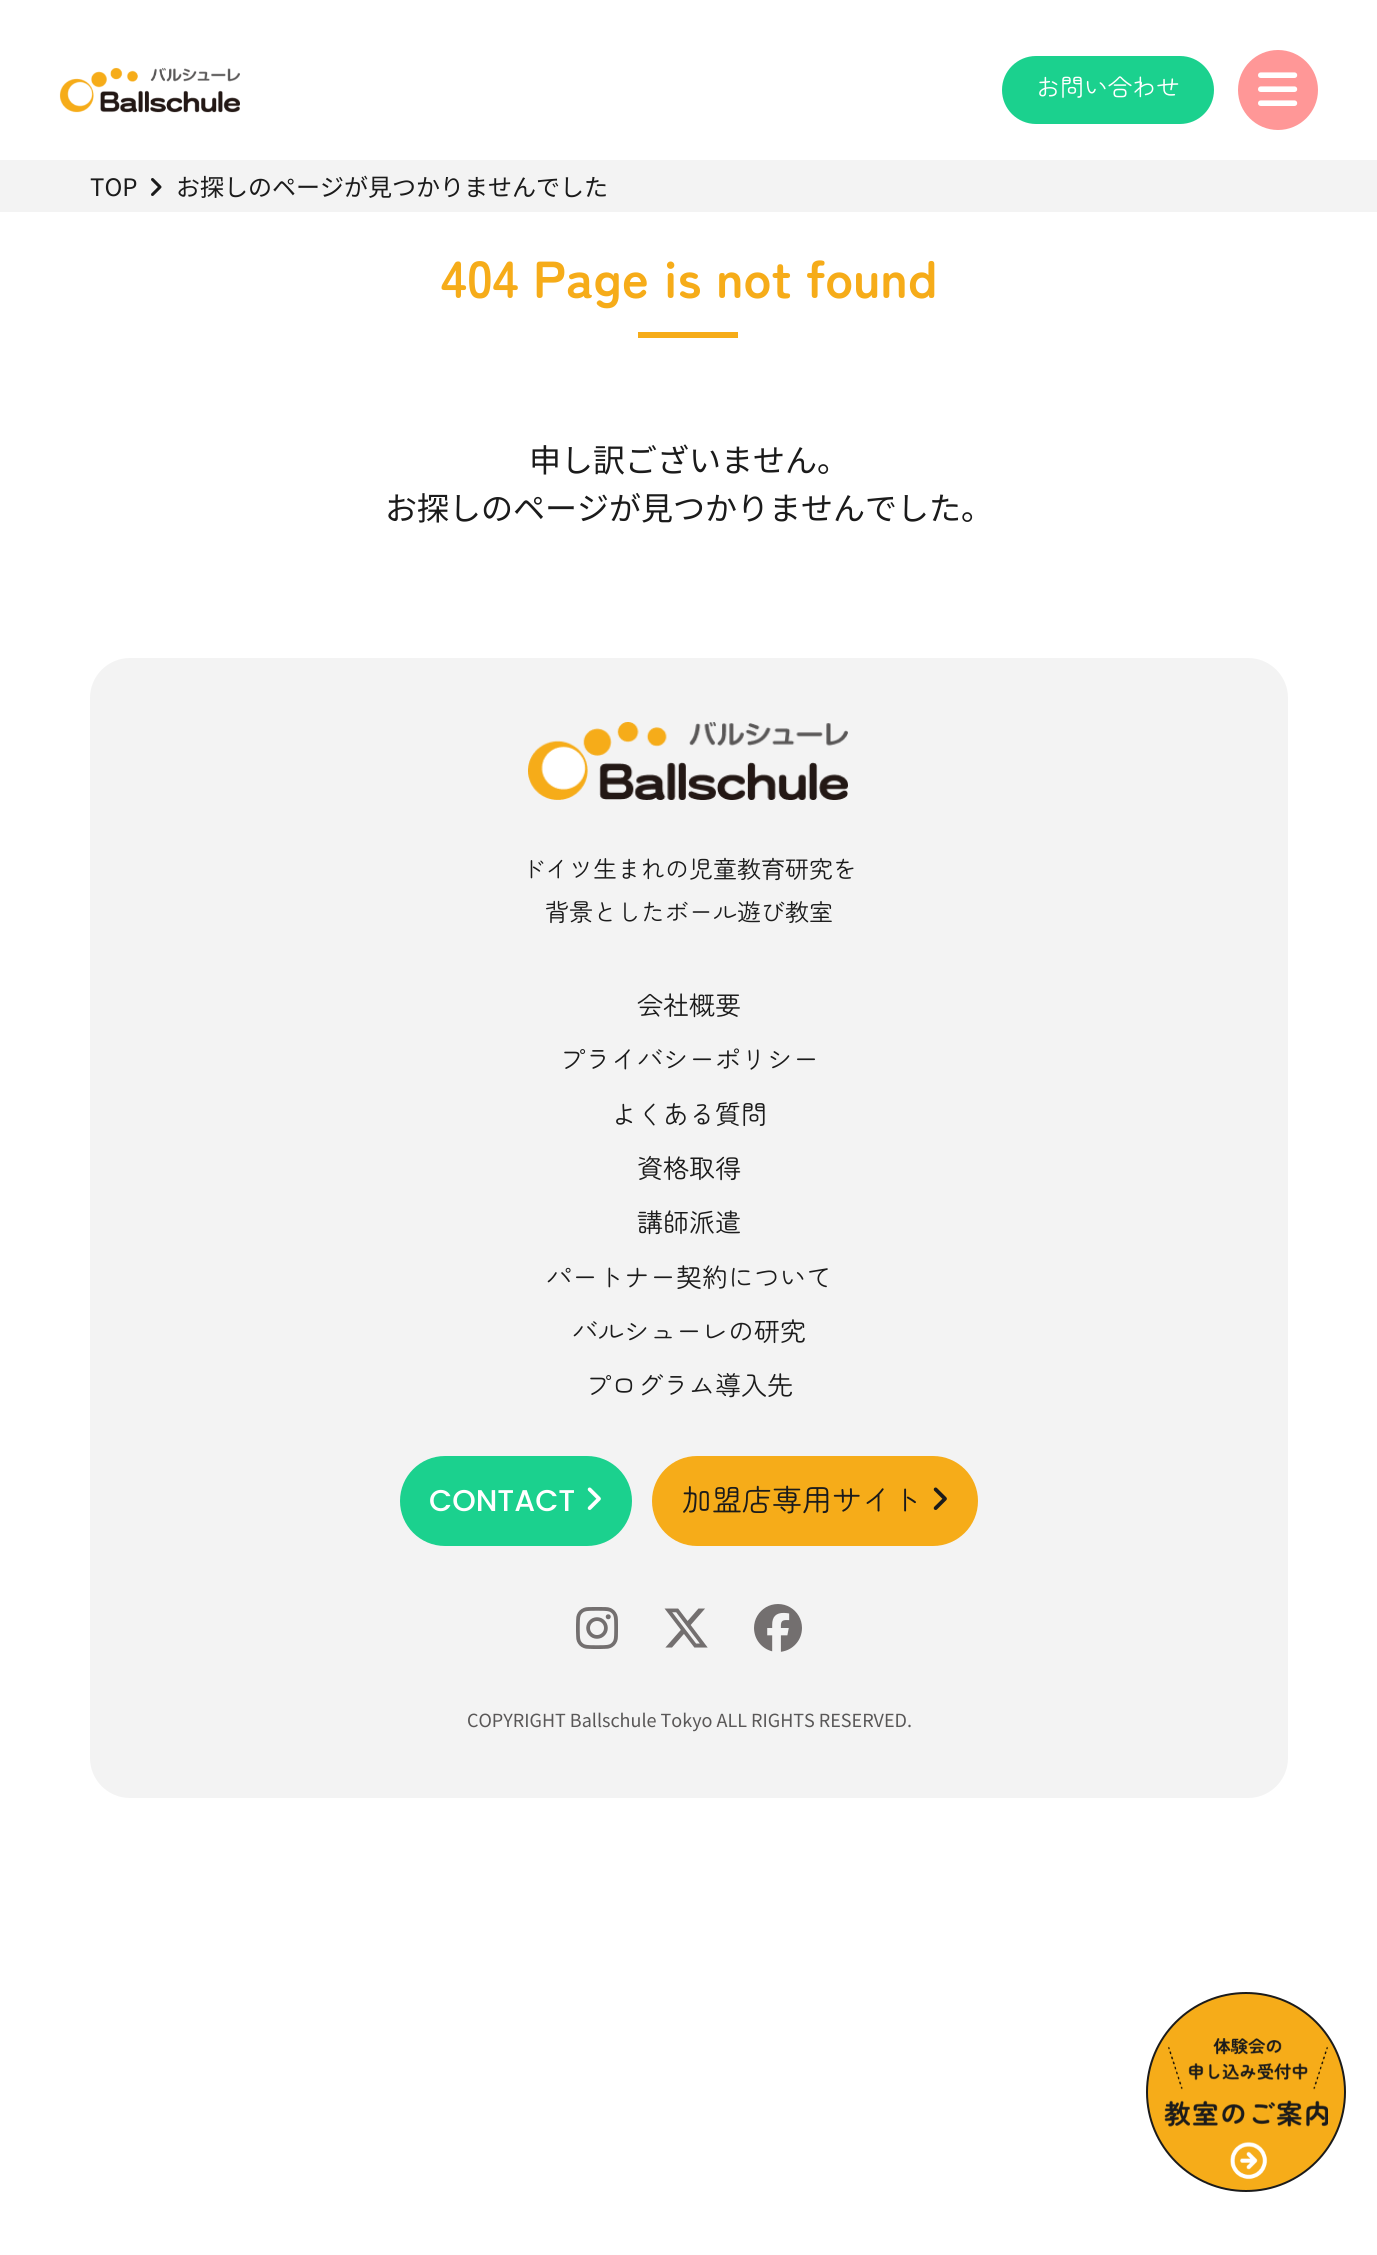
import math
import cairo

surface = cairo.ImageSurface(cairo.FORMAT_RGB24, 1377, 2255)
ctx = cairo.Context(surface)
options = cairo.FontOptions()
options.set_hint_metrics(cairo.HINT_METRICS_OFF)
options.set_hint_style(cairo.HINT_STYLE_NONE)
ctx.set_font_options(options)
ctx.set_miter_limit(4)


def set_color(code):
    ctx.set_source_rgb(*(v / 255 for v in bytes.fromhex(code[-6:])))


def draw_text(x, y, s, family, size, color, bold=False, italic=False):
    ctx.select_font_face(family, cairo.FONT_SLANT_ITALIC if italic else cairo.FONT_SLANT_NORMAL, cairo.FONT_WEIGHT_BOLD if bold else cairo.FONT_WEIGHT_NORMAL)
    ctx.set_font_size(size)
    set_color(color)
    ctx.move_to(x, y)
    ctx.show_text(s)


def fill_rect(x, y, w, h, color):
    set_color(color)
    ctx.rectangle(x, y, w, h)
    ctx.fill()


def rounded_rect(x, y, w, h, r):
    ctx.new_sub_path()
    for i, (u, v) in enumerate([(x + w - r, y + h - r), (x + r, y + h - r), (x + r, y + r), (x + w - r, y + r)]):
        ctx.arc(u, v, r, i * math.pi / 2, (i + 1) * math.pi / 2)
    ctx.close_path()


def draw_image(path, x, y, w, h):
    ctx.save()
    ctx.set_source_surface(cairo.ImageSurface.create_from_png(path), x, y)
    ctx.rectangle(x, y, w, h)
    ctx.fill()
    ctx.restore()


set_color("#ffffff")
ctx.paint()
draw_image("assets/img1.png", 59, 67, 181, 46)
set_color("#1bd18e")
rounded_rect(1003, 57, 210, 66, 33)
ctx.fill_preserve()
ctx.stroke()
draw_text(1036, 96, "お問い合わせ", "Zen Maru Gothic", 24, "#ffffff")
set_color("#ff9797")
ctx.new_path()
ctx.arc(1278, 90, 40, 0, 2 * math.pi)
ctx.fill()
draw_image("assets/img2.png", 1258, 72, 40, 34)
fill_rect(0, 160, 1377, 52, "#f3f3f3")
draw_text(90, 196, "TOP", "Noto Sans JP", 24, "#1b1b1b")
draw_image("assets/img3.png", 151, 178, 11, 18)
draw_text(176, 196, "お探しのページが見つかりませんでした", "Noto Sans JP", 24, "#1b1b1b")
draw_text(441, 298, "404 Page is not found", "Zen Maru Gothic", 52, "#f6ac19", bold=True)
fill_rect(638, 332, 100, 6, "#f6ac19")
draw_text(529, 472, "申し訳ございません。", "Noto Sans JP", 32, "#1b1b1b")
draw_text(385, 520, "お探しのページが見つかりませんでした。", "Noto Sans JP", 32, "#1b1b1b")
set_color("#f3f3f3")
rounded_rect(90, 658, 1198, 1140, 40)
ctx.fill()
draw_image("assets/img4.png", 528, 722, 320, 78)
draw_text(521, 878, "ドイツ生まれの児童教育研究を", "Zen Maru Gothic", 24, "#1b1b1b")
draw_text(545, 921, "背景としたボール遊び教室", "Zen Maru Gothic", 24, "#1b1b1b")
draw_text(637, 1015, "会社概要", "Zen Maru Gothic", 26, "#1b1b1b")
draw_text(559, 1069, "プライバシーポリシー", "Zen Maru Gothic", 26, "#1b1b1b")
draw_text(611, 1124, "よくある質問", "Zen Maru Gothic", 26, "#1b1b1b")
draw_text(637, 1178, "資格取得", "Zen Maru Gothic", 26, "#1b1b1b")
draw_text(637, 1232, "講師派遣", "Zen Maru Gothic", 26, "#1b1b1b")
draw_text(546, 1287, "パートナー契約について", "Zen Maru Gothic", 26, "#1b1b1b")
draw_text(572, 1341, "バルシューレの研究", "Zen Maru Gothic", 26, "#1b1b1b")
draw_text(585, 1395, "プログラム導入先", "Zen Maru Gothic", 26, "#1b1b1b")
set_color("#1bd18e")
rounded_rect(401, 1457, 230, 88, 44)
ctx.fill_preserve()
ctx.stroke()
draw_text(429, 1511, "CONTACT", "Poppins Medium", 30, "#ffffff")
draw_image("assets/img5.png", 587, 1487, 14, 23)
set_color("#f6ac19")
rounded_rect(653, 1457, 324, 88, 44)
ctx.fill_preserve()
ctx.stroke()
draw_text(682, 1511, "加盟店専用サイト", "Zen Maru Gothic", 30, "#1b1b1b")
draw_image("assets/img6.png", 933, 1487, 14, 23)
draw_image("assets/img7.png", 576, 1607, 42, 42)
draw_image("assets/img8.png", 664, 1608, 44, 40)
draw_image("assets/img9.png", 754, 1604, 48, 48)
draw_text(467, 1727, "COPYRIGHT Ballschule Tokyo ALL RIGHTS RESERVED.", "Noto Sans JP", 18, "#595757")
set_color("#f6ac19")
ctx.new_path()
ctx.arc(1246, 2092, 99, 0, 2 * math.pi)
ctx.fill_preserve()
set_color("#1b1b1b")
ctx.stroke()
draw_image("assets/img10.png", 1164, 2038, 164, 142)
surface.write_to_png("output.png")
